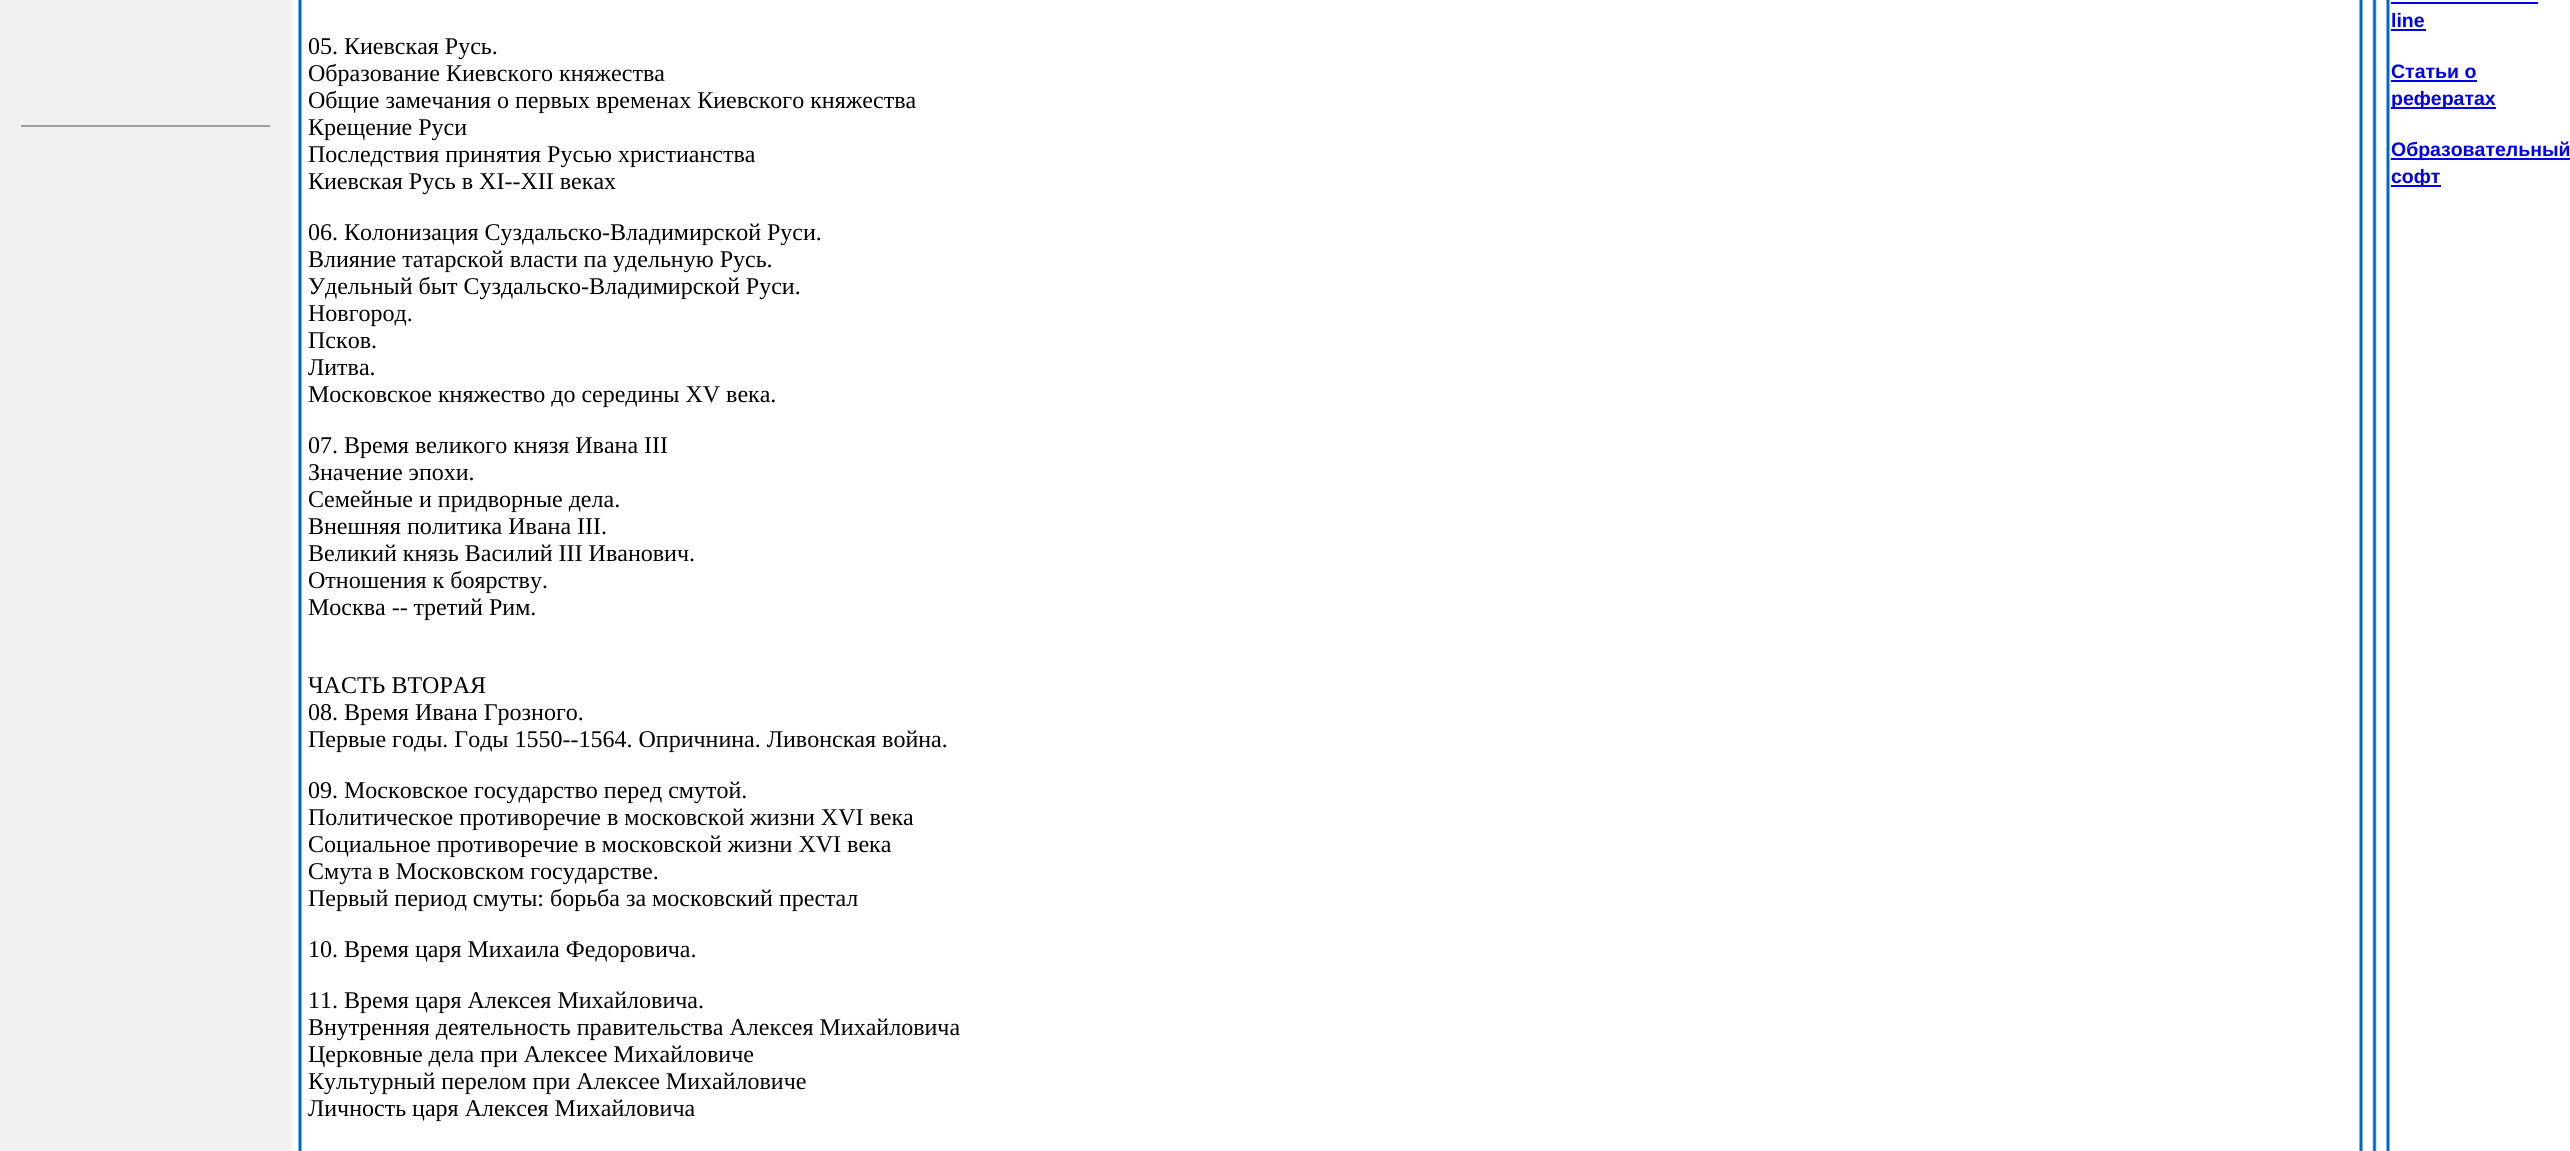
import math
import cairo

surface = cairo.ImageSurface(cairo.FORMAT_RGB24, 2570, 1151)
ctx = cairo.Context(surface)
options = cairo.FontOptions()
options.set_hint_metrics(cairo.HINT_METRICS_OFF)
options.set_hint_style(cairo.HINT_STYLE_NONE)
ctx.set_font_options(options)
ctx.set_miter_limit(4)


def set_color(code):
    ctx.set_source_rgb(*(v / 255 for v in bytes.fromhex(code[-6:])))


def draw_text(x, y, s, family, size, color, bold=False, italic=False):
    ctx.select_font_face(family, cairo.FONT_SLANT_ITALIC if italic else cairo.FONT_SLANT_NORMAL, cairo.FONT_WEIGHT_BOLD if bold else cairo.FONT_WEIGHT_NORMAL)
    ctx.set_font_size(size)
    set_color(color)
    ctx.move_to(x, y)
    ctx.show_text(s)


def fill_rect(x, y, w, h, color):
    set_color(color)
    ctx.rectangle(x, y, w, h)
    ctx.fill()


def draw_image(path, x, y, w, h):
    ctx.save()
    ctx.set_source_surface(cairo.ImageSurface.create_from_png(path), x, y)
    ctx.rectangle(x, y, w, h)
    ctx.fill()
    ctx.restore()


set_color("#f1f1f1")
ctx.paint()
fill_rect(21, 125, 251, 2, "#9f9f9f")
fill_rect(270, 125, 2, 2, "#eeeeee")
fill_rect(302, 0, 2268, 1151, "#ffffff")
draw_image("assets/img1.png", 292, 0, 10, 1151)
draw_text(308, 54, "05. Киевская Русь.", "Liberation Serif", 24, "#000000")
draw_text(308, 81, "Образование Киевского княжества", "Liberation Serif", 24, "#000000")
draw_text(308, 108, "Общие замечания о первых временах Киевского княжества", "Liberation Serif", 24, "#000000")
draw_text(308, 135, "Крещение Руси", "Liberation Serif", 24, "#000000")
draw_text(308, 162, "Последствия принятия Русью христианства", "Liberation Serif", 24, "#000000")
draw_text(308, 189, "Киевская Русь в XI--XII веках", "Liberation Serif", 24, "#000000")
draw_text(308, 240, "06. Колонизация Суздальско-Владимирской Руси.", "Liberation Serif", 24, "#000000")
draw_text(308, 267, "Влияние татарской власти па удельную Русь.", "Liberation Serif", 24, "#000000")
draw_text(308, 294, "Удельный быт Суздальско-Владимирской Руси.", "Liberation Serif", 24, "#000000")
draw_text(308, 321, "Новгород.", "Liberation Serif", 24, "#000000")
draw_text(308, 348, "Псков.", "Liberation Serif", 24, "#000000")
draw_text(308, 375, "Литва.", "Liberation Serif", 24, "#000000")
draw_text(308, 402, "Московское княжество до середины XV века.", "Liberation Serif", 24, "#000000")
draw_text(308, 453, "07. Время великого князя Ивана III", "Liberation Serif", 24, "#000000")
draw_text(308, 480, "Значение эпохи.", "Liberation Serif", 24, "#000000")
draw_text(308, 507, "Семейные и придворные дела.", "Liberation Serif", 24, "#000000")
draw_text(308, 534, "Внешняя политика Ивана III.", "Liberation Serif", 24, "#000000")
draw_text(308, 561, "Великий князь Василий III Иванович.", "Liberation Serif", 24, "#000000")
draw_text(308, 588, "Отношения к боярству.", "Liberation Serif", 24, "#000000")
draw_text(308, 615, "Москва -- третий Рим.", "Liberation Serif", 24, "#000000")
draw_text(308, 693, "ЧАСТЬ ВТОРАЯ", "Liberation Serif", 24, "#000000")
draw_text(308, 720, "08. Время Ивана Грозного.", "Liberation Serif", 24, "#000000")
draw_text(308, 747, "Первые годы. Годы 1550--1564. Опричнина. Ливонская война.", "Liberation Serif", 24, "#000000")
draw_text(308, 798, "09. Московское государство перед смутой.", "Liberation Serif", 24, "#000000")
draw_text(308, 825, "Политическое противоречие в московской жизни XVI века", "Liberation Serif", 24, "#000000")
draw_text(308, 852, "Социальное противоречие в московской жизни XVI века", "Liberation Serif", 24, "#000000")
draw_text(308, 879, "Смута в Московском государстве.", "Liberation Serif", 24, "#000000")
draw_text(308, 906, "Первый период смуты: борьба за московский престал", "Liberation Serif", 24, "#000000")
draw_text(308, 957, "10. Время царя Михаила Федоровича.", "Liberation Serif", 24, "#000000")
draw_text(308, 1008, "11. Время царя Алексея Михайловича.", "Liberation Serif", 24, "#000000")
draw_text(308, 1035, "Внутренняя деятельность правительства Алексея Михайловича", "Liberation Serif", 24, "#000000")
draw_text(308, 1062, "Церковные дела при Алексее Михайловиче", "Liberation Serif", 24, "#000000")
draw_text(308, 1089, "Культурный перелом при Алексее Михайловиче", "Liberation Serif", 24, "#000000")
draw_text(308, 1116, "Личность царя Алексея Михайловича", "Liberation Serif", 24, "#000000")
draw_image("assets/img2.png", 2359, 0, 31, 1151)
draw_text(2391, 27, "line", "Liberation Sans", 19.5, "#0000ee", bold=True)
fill_rect(2391, 2, 147, 2, "#0000ee")
fill_rect(2391, 29, 35, 2, "#0000ee")
draw_text(2391, 78, "Статьи о", "Liberation Sans", 19.5, "#0000ee", bold=True)
fill_rect(2391, 80, 86, 2, "#0000ee")
fill_rect(2391, 107, 105, 2, "#0000ee")
draw_text(2391, 105, "рефератах", "Liberation Sans", 19.5, "#0000ee", bold=True)
fill_rect(2391, 158, 179, 2, "#0000ee")
draw_text(2391, 156, "Образовательный", "Liberation Sans", 19.5, "#0000ee", bold=True)
fill_rect(2391, 185, 50, 2, "#0000ee")
draw_text(2391, 183, "софт", "Liberation Sans", 19.5, "#0000ee", bold=True)
surface.write_to_png("output.png")
